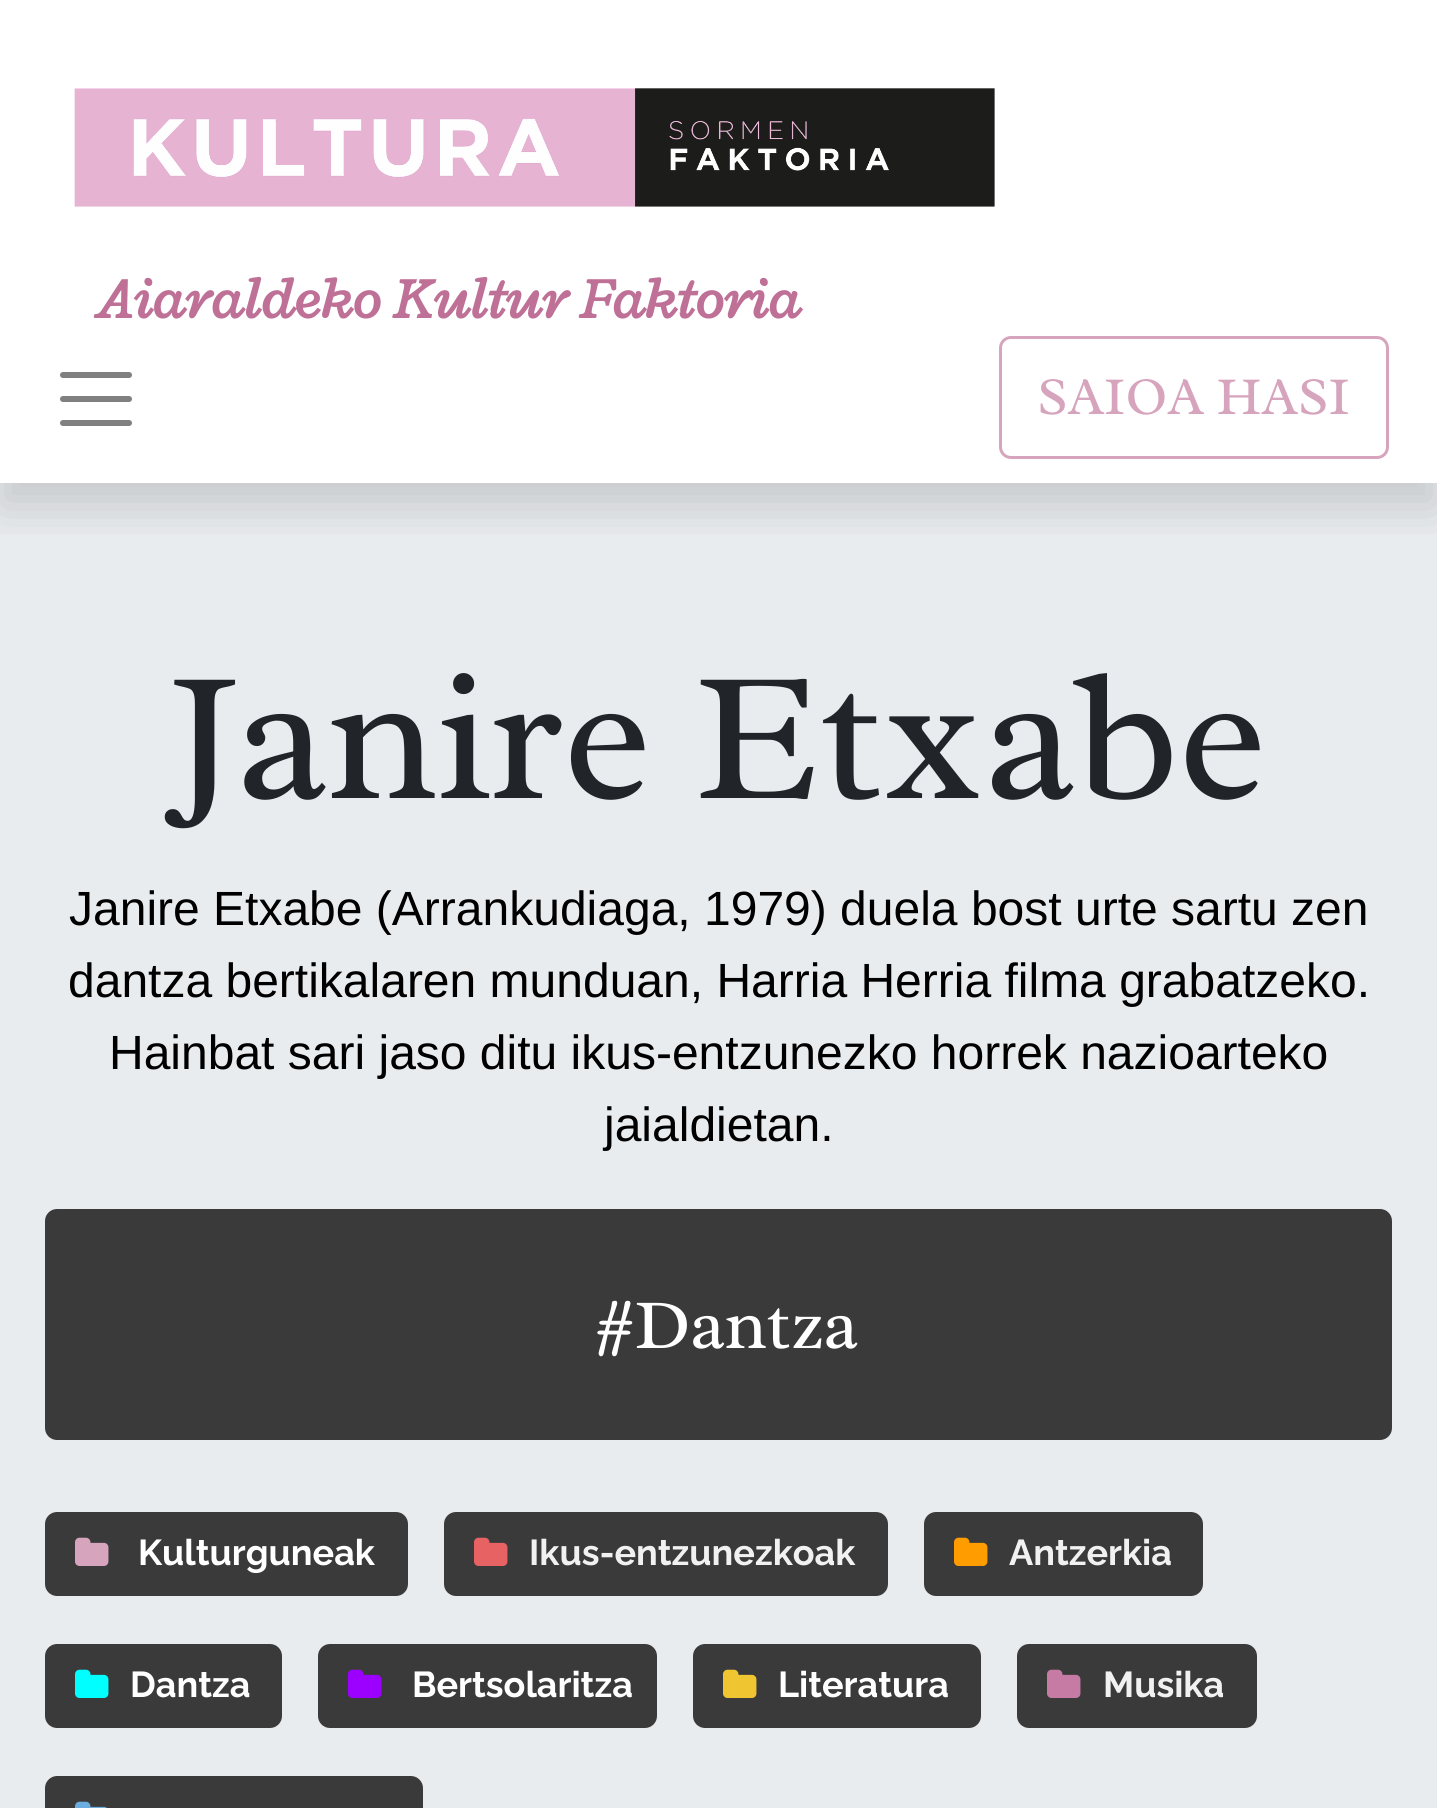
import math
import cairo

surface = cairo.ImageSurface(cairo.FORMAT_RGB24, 1437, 1808)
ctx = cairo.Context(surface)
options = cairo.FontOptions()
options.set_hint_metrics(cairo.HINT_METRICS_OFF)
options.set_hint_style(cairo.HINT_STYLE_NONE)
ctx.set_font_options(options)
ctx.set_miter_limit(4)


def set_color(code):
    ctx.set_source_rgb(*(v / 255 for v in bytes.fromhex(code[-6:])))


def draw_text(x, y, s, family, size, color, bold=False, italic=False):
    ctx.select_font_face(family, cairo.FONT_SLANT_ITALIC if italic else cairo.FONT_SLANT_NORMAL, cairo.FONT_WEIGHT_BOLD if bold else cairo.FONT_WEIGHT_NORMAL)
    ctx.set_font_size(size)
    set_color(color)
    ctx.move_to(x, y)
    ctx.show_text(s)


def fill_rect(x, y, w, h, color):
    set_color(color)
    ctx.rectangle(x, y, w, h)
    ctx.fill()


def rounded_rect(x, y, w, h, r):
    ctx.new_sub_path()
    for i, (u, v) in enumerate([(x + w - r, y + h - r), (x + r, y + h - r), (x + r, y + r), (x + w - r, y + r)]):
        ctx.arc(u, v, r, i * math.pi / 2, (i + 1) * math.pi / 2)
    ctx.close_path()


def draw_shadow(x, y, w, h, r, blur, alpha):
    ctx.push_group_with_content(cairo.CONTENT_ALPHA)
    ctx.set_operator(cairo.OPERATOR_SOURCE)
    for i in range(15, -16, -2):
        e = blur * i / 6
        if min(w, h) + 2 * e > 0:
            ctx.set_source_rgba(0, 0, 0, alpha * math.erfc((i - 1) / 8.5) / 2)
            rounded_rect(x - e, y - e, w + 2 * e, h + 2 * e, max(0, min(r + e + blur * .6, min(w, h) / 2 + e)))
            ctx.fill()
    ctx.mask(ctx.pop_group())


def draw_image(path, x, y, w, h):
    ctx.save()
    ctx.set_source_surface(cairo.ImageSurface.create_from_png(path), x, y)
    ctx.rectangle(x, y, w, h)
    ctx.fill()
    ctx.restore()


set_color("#ffffff")
ctx.paint()
fill_rect(0, 483, 1437, 1325, "#e9ecef")
ctx.save()
ctx.rectangle(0, 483, 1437, 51)
ctx.clip()
set_color("#000000")
draw_shadow(0, 24, 1437, 483, 0, 24, 0.15)
ctx.restore()
draw_image("assets/img1.png", 74, 88, 921, 119)
draw_text(96, 318, "Aiaraldeko Kultur Faktoria", "Radley", 60, "#be7096", bold=True, italic=True)
ctx.new_path()
ctx.move_to(63, 375)
ctx.line_to(129, 375)
ctx.move_to(63, 399)
ctx.line_to(129, 399)
ctx.move_to(63, 423)
ctx.line_to(129, 423)
set_color("#808080")
ctx.set_line_width(6)
ctx.set_line_cap(cairo.LINE_CAP_ROUND)
ctx.stroke()
rounded_rect(1000.5, 337.5, 387, 120, 10.5)
set_color("#d6a5bd")
ctx.set_line_width(3)
ctx.set_line_cap(cairo.LINE_CAP_BUTT)
ctx.stroke()
draw_text(1037, 414, "SAIOA HASI", "Radley", 54, "#d6a5bd")
draw_text(170, 798, "Janire Etxabe", "Radley", 186, "#212529")
draw_text(69, 925, "Janire Etxabe (Arrankudiaga, 1979) duela bost urte sartu zen", "Liberation Sans", 48, "#000000")
draw_text(68, 997, "dantza bertikalaren munduan, Harria Herria filma grabatzeko.", "Liberation Sans", 48, "#000000")
draw_text(109, 1069, "Hainbat sari jaso ditu ikus-entzunezko horrek nazioarteko", "Liberation Sans", 48, "#000000")
draw_text(604, 1141, "jaialdietan.", "Liberation Sans", 48, "#000000")
set_color("#3a3a3a")
rounded_rect(45, 1209, 1347, 231, 12)
ctx.fill()
draw_text(595, 1348, "#Dantza", "Radley", 71, "#ffffff")
set_color("#3a3a3a")
rounded_rect(45, 1512, 363, 84, 12)
ctx.fill()
draw_image("assets/img2.png", 75, 1537, 34, 29)
draw_text(138, 1565, "Kulturguneak", "Raleway", 36, "#ffffff", bold=True)
set_color("#3a3a3a")
rounded_rect(444, 1512, 444, 84, 12)
ctx.fill()
draw_image("assets/img3.png", 474, 1537, 34, 29)
draw_text(529, 1565, "Ikus-entzunezkoak", "Raleway", 36, "#f2f1f2", bold=True)
set_color("#3a3a3a")
rounded_rect(924, 1512, 279, 84, 12)
ctx.fill()
draw_image("assets/img4.png", 954, 1537, 34, 29)
draw_text(1009, 1565, "Antzerkia", "Raleway", 36, "#f2f1f2", bold=True)
set_color("#3a3a3a")
rounded_rect(45, 1644, 237, 84, 12)
ctx.fill()
draw_image("assets/img5.png", 75, 1669, 34, 29)
draw_text(130, 1697, "Dantza", "Raleway", 36, "#ffffff", bold=True)
set_color("#3a3a3a")
rounded_rect(318, 1644, 339, 84, 12)
ctx.fill()
draw_image("assets/img6.png", 348, 1669, 34, 29)
draw_text(412, 1697, "Bertsolaritza", "Raleway", 36, "#ffffff", bold=True)
set_color("#3a3a3a")
rounded_rect(693, 1644, 288, 84, 12)
ctx.fill()
draw_image("assets/img7.png", 723, 1669, 34, 29)
draw_text(778, 1697, "Literatura", "Raleway", 36, "#ffffff", bold=True)
set_color("#3a3a3a")
rounded_rect(1017, 1644, 240, 84, 12)
ctx.fill()
draw_image("assets/img8.png", 1047, 1669, 34, 29)
draw_text(1103, 1697, "Musika", "Raleway", 36, "#f2f1f2", bold=True)
set_color("#3a3a3a")
ctx.new_path()
ctx.move_to(57, 1776)
ctx.line_to(411, 1776)
ctx.curve_to(417.5, 1776, 423, 1781.5, 423, 1788)
ctx.line_to(423, 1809)
ctx.line_to(45, 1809)
ctx.line_to(45, 1788)
ctx.curve_to(45, 1781.5, 50.5, 1776, 57, 1776)
ctx.close_path()
ctx.fill()
draw_image("assets/img9.png", 75, 1801, 32, 7)
surface.write_to_png("output.png")
